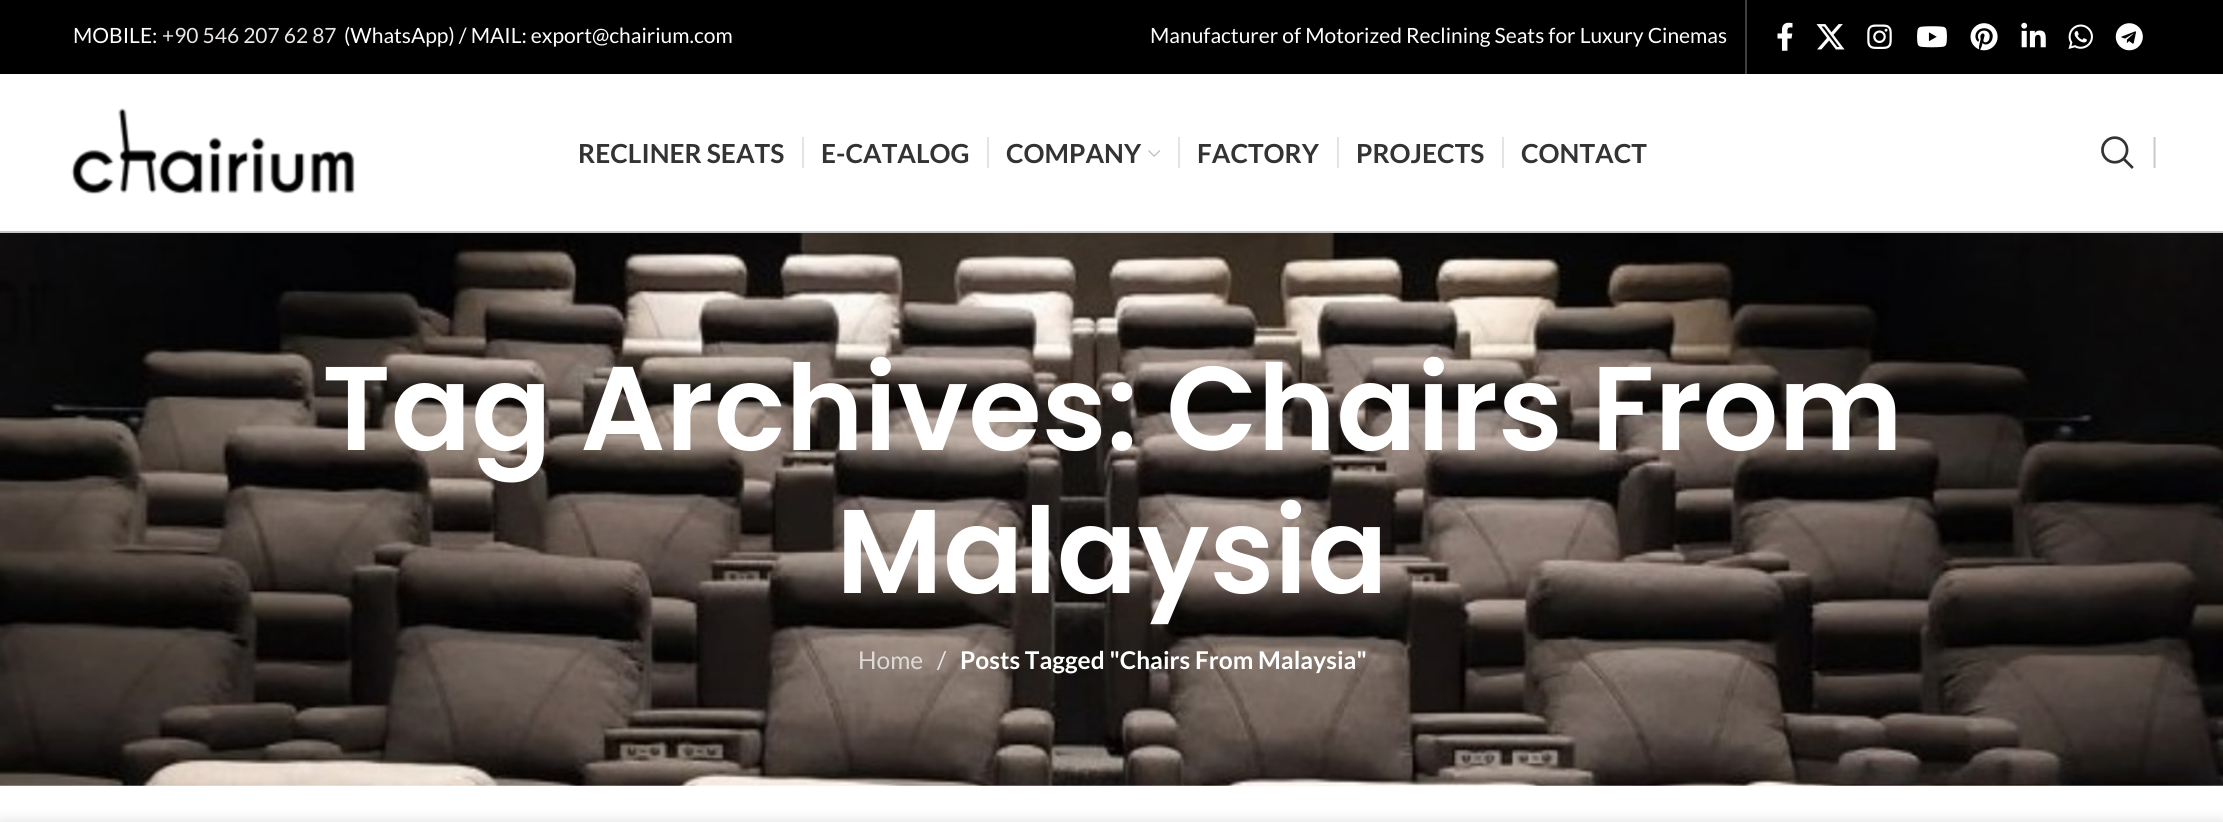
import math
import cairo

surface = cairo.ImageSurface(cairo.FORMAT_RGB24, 2223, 822)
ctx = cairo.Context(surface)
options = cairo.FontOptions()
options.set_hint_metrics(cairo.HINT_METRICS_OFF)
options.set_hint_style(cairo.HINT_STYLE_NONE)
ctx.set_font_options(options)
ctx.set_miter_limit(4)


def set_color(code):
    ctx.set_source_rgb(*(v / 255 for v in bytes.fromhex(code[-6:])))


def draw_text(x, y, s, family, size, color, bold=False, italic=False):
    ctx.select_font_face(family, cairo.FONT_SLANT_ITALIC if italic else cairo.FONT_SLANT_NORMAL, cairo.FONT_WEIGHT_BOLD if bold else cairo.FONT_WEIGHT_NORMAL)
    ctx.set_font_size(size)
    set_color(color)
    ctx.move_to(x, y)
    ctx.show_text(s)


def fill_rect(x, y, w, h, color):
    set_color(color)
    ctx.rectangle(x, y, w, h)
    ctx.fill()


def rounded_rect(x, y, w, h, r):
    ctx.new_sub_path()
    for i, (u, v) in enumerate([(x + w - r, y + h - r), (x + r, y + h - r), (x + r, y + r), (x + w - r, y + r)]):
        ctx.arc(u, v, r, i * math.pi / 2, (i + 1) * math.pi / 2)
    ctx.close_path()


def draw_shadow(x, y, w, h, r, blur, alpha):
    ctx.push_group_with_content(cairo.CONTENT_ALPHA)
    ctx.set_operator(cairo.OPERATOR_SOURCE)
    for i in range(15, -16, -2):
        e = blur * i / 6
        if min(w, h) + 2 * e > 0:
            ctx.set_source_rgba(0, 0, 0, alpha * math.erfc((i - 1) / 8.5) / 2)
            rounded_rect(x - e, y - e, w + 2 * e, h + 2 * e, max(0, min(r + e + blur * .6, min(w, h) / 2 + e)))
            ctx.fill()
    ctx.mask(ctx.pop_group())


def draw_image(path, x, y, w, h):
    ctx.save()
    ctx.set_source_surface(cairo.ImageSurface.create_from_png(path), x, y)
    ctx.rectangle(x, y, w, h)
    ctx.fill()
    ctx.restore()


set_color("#ffffff")
ctx.paint()
fill_rect(0, 0, 2223, 74, "#000000")
draw_text(73, 43, "MOBILE:", "Lato", 21, "#ffffff")
draw_text(162, 43, "+90 546 207 62 87", "Lato", 21, "#e9e6e4")
draw_text(344, 43, "(WhatsApp) / MAIL: export@chairium.com", "Lato", 21, "#ffffff")
draw_text(1150, 43, "Manufacturer of Motorized Reclining Seats for Luxury Cinemas", "Lato", 21, "#ffffff")
fill_rect(1745, 0, 2, 74, "#404040")
draw_image("assets/img1.png", 1777, 22, 16, 29)
draw_image("assets/img2.png", 1816, 24, 29, 26)
draw_image("assets/img3.png", 1867, 24, 25, 25)
draw_image("assets/img4.png", 1917, 26, 30, 22)
draw_image("assets/img5.png", 1970, 23, 28, 28)
draw_image("assets/img6.png", 2021, 22, 25, 26)
draw_image("assets/img7.png", 2068, 24, 25, 25)
draw_image("assets/img8.png", 2115, 23, 28, 28)
fill_rect(2155, 137, 1, 31, "#e3e3e3")
fill_rect(0, 231, 2223, 2, "#c7c7c7")
draw_image("assets/img9.png", 71, 108, 284, 87)
draw_text(578, 163, "RECLINER SEATS", "Lato", 26.25, "#333333", bold=True)
fill_rect(802, 137, 2, 31, "#e4e4e4")
draw_text(821, 163, "E-CATALOG", "Lato", 26.25, "#333333", bold=True)
fill_rect(987, 137, 2, 31, "#e4e4e4")
draw_text(1006, 163, "COMPANY", "Lato", 26.25, "#333333", bold=True)
draw_image("assets/img10.png", 1148, 150, 13, 7)
fill_rect(1178, 137, 2, 31, "#e4e4e4")
draw_text(1197, 163, "FACTORY", "Lato", 26.25, "#333333", bold=True)
fill_rect(1337, 137, 2, 31, "#e4e4e4")
draw_text(1356, 163, "PROJECTS", "Lato", 26.25, "#333333", bold=True)
fill_rect(1502, 137, 2, 31, "#e4e4e4")
draw_text(1521, 163, "CONTACT", "Lato", 26.25, "#333333", bold=True)
draw_image("assets/img11.png", 2101, 136, 33, 33)
fill_rect(2153, 137, 1, 31, "#e4e4e4")
fill_rect(2154, 137, 1, 31, "#cbcbcb")
draw_image("assets/img12.png", 0, 233, 2223, 553)
draw_text(322, 450, "Tag Archives: Chairs From", "Poppins SemiBold", 119, "#ffffff")
draw_text(836, 593, "Malaysia", "Poppins SemiBold", 119, "#ffffff")
draw_text(858, 669, "Home", "Lato", 24.5, "#dedad7")
draw_text(937, 669, "/", "Lato", 24.5, "#e9e6e4")
draw_text(960, 669, "Posts Tagged \"Chairs From Malaysia\"", "Lato", 24.5, "#ffffff", bold=True)
set_color("#000000")
draw_shadow(0, 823, 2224, 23, 0, 8, 0.14)
surface.write_to_png("output.png")
